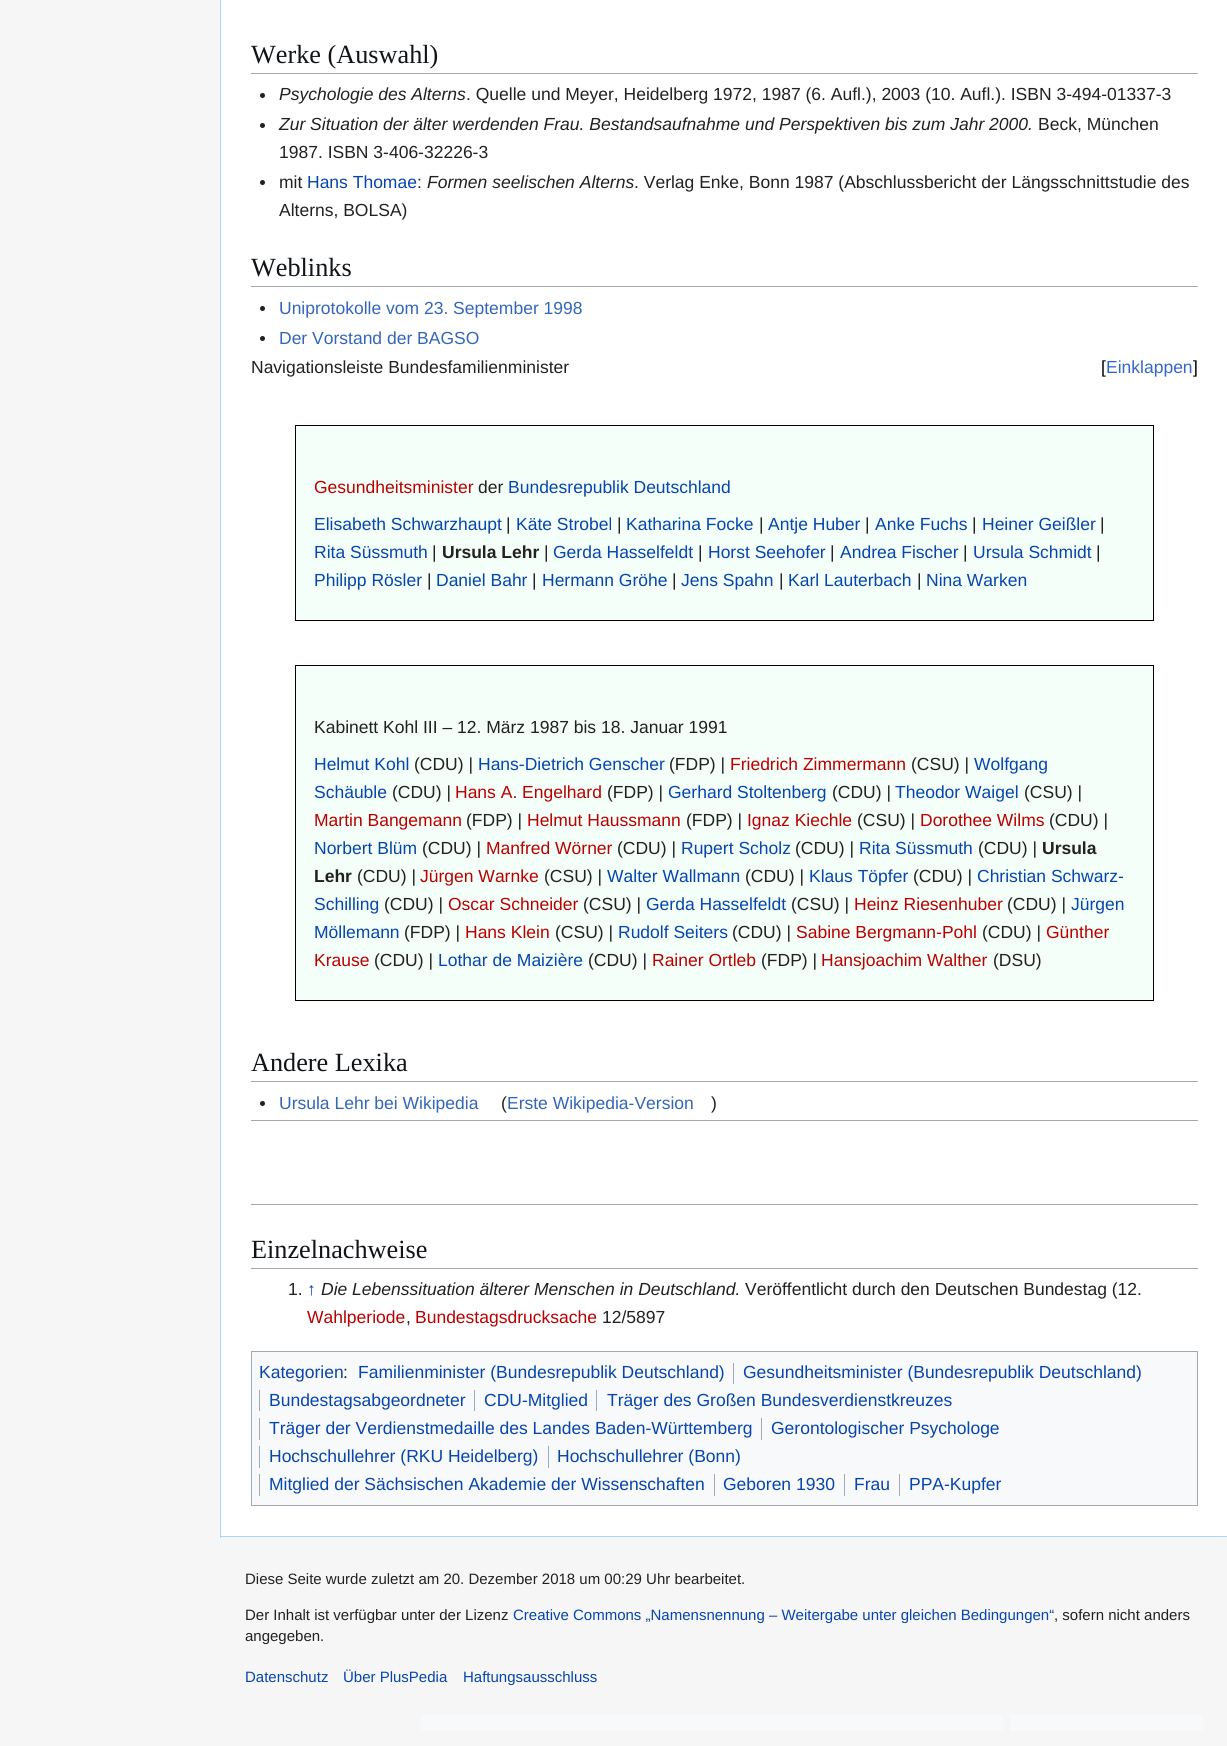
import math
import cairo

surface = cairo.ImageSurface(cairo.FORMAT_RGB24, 1227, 1746)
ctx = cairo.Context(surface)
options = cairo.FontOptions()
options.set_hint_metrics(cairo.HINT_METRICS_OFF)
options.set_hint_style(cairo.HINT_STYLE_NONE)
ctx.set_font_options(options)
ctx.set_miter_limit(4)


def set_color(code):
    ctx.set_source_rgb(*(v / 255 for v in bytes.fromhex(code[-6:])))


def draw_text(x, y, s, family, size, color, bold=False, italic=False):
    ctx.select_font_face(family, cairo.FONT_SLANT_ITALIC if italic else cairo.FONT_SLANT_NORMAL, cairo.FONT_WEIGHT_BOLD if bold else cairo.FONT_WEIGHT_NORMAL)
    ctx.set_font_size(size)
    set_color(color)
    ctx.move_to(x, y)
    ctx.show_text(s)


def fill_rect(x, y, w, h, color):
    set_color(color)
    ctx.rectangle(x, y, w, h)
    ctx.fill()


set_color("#f6f6f6")
ctx.paint()
fill_rect(221, 0, 1006, 1536, "#ffffff")
fill_rect(220, 1536, 1007, 1, "#a7d7f9")
fill_rect(220, 0, 1, 1538, "#a7d7f9")
fill_rect(251, 73, 947, 1, "#a2a9b1")
draw_text(251, 63, "Werke (Auswahl)", "Liberation Serif", 26.25, "#101418")
set_color("#202122")
ctx.new_path()
ctx.arc(262.5, 95.5, 2.5, 0, 2 * math.pi)
ctx.fill()
draw_text(279, 100, "Psychologie des Alterns", "Liberation Sans", 17.5, "#202122", italic=True)
draw_text(466, 100, ". Quelle und Meyer, Heidelberg 1972, 1987 (6. Aufl.), 2003 (10. Aufl.). ISBN 3-494-01337-3", "Liberation Sans", 17.5, "#202122")
ctx.new_path()
ctx.arc(262.5, 125.5, 2.5, 0, 2 * math.pi)
ctx.fill()
draw_text(279, 130, "Zur Situation der älter werdenden Frau. Bestandsaufnahme und Perspektiven bis zum Jahr 2000.", "Liberation Sans", 17.5, "#202122", italic=True)
draw_text(1038, 130, "Beck, München", "Liberation Sans", 17.5, "#202122")
draw_text(279, 158, "1987. ISBN 3-406-32226-3", "Liberation Sans", 17.5, "#202122")
ctx.new_path()
ctx.arc(262.5, 182.5, 2.5, 0, 2 * math.pi)
ctx.fill()
draw_text(279, 188, "mit", "Liberation Sans", 17.5, "#202122")
draw_text(307, 188, "Hans Thomae", "Liberation Sans", 17.5, "#0645ad")
draw_text(417, 188, ":", "Liberation Sans", 17.5, "#202122")
draw_text(427, 188, "Formen seelischen Alterns", "Liberation Sans", 17.5, "#202122", italic=True)
draw_text(634, 188, ". Verlag Enke, Bonn 1987 (Abschlussbericht der Längsschnittstudie des", "Liberation Sans", 17.5, "#202122")
draw_text(279, 216, "Alterns, BOLSA)", "Liberation Sans", 17.5, "#202122")
fill_rect(251, 286, 947, 1, "#a2a9b1")
draw_text(251, 276, "Weblinks", "Liberation Serif", 26.25, "#101418")
set_color("#202122")
ctx.new_path()
ctx.arc(262.5, 308.5, 2.5, 0, 2 * math.pi)
ctx.fill()
draw_text(279, 314, "Uniprotokolle vom 23. September 1998", "Liberation Sans", 17.5, "#3366bb")
set_color("#202122")
ctx.new_path()
ctx.arc(262.5, 338.5, 2.5, 0, 2 * math.pi)
ctx.fill()
draw_text(279, 344, "Der Vorstand der BAGSO", "Liberation Sans", 17.5, "#3366bb")
draw_text(251, 373, "Navigationsleiste Bundesfamilienminister", "Liberation Sans", 17.5, "#202122")
draw_text(1101, 373, "[", "Liberation Sans", 17.5, "#000000")
draw_text(1106, 373, "Einklappen", "Liberation Sans", 17.5, "#3366cc")
draw_text(1193, 373, "]", "Liberation Sans", 17.5, "#000000")
set_color("#f3fff8")
ctx.rectangle(295.5, 425.5, 858, 195)
ctx.fill_preserve()
set_color("#000000")
ctx.set_line_width(1)
ctx.stroke()
draw_text(314, 493, "Gesundheitsminister", "Liberation Sans", 17.5, "#ba0000")
draw_text(478, 493, "der", "Liberation Sans", 17.5, "#202122")
draw_text(508, 493, "Bundesrepublik Deutschland", "Liberation Sans", 17.5, "#0645ad")
draw_text(314, 530, "Elisabeth Schwarzhaupt", "Liberation Sans", 17.5, "#0645ad")
draw_text(506, 530, "|", "Liberation Sans", 17.5, "#202122")
draw_text(516, 530, "Käte Strobel", "Liberation Sans", 17.5, "#0645ad")
draw_text(617, 530, "|", "Liberation Sans", 17.5, "#202122")
draw_text(626, 530, "Katharina Focke", "Liberation Sans", 17.5, "#0645ad")
draw_text(759, 530, "|", "Liberation Sans", 17.5, "#202122")
draw_text(768, 530, "Antje Huber", "Liberation Sans", 17.5, "#0645ad")
draw_text(865, 530, "|", "Liberation Sans", 17.5, "#202122")
draw_text(875, 530, "Anke Fuchs", "Liberation Sans", 17.5, "#0645ad")
draw_text(972, 530, "|", "Liberation Sans", 17.5, "#202122")
draw_text(982, 530, "Heiner Geißler", "Liberation Sans", 17.5, "#0645ad")
draw_text(1100, 530, "|", "Liberation Sans", 17.5, "#202122")
draw_text(314, 558, "Rita Süssmuth", "Liberation Sans", 17.5, "#0645ad")
draw_text(432, 558, "|", "Liberation Sans", 17.5, "#202122")
draw_text(442, 558, "Ursula Lehr", "Liberation Sans", 17.5, "#202122", bold=True)
draw_text(544, 558, "|", "Liberation Sans", 17.5, "#202122")
draw_text(553, 558, "Gerda Hasselfeldt", "Liberation Sans", 17.5, "#0645ad")
draw_text(698, 558, "|", "Liberation Sans", 17.5, "#202122")
draw_text(708, 558, "Horst Seehofer", "Liberation Sans", 17.5, "#0645ad")
draw_text(830, 558, "|", "Liberation Sans", 17.5, "#202122")
draw_text(840, 558, "Andrea Fischer", "Liberation Sans", 17.5, "#0645ad")
draw_text(963, 558, "|", "Liberation Sans", 17.5, "#202122")
draw_text(973, 558, "Ursula Schmidt", "Liberation Sans", 17.5, "#0645ad")
draw_text(1096, 558, "|", "Liberation Sans", 17.5, "#202122")
draw_text(314, 586, "Philipp Rösler", "Liberation Sans", 17.5, "#0645ad")
draw_text(427, 586, "|", "Liberation Sans", 17.5, "#202122")
draw_text(436, 586, "Daniel Bahr", "Liberation Sans", 17.5, "#0645ad")
draw_text(532, 586, "|", "Liberation Sans", 17.5, "#202122")
draw_text(542, 586, "Hermann Gröhe", "Liberation Sans", 17.5, "#0645ad")
draw_text(672, 586, "|", "Liberation Sans", 17.5, "#202122")
draw_text(681, 586, "Jens Spahn", "Liberation Sans", 17.5, "#0645ad")
draw_text(779, 586, "|", "Liberation Sans", 17.5, "#202122")
draw_text(788, 586, "Karl Lauterbach", "Liberation Sans", 17.5, "#0645ad")
draw_text(917, 586, "|", "Liberation Sans", 17.5, "#202122")
draw_text(926, 586, "Nina Warken", "Liberation Sans", 17.5, "#0645ad")
set_color("#f3fff8")
ctx.rectangle(295.5, 665.5, 858, 335)
ctx.fill_preserve()
set_color("#000000")
ctx.stroke()
draw_text(314, 733, "Kabinett Kohl III – 12. März 1987 bis 18. Januar 1991", "Liberation Sans", 17.5, "#202122")
draw_text(314, 770, "Helmut Kohl", "Liberation Sans", 17.5, "#0645ad")
draw_text(414, 770, "(CDU) |", "Liberation Sans", 17.5, "#202122")
draw_text(478, 770, "Hans-Dietrich Genscher", "Liberation Sans", 17.5, "#0645ad")
draw_text(669, 770, "(FDP) |", "Liberation Sans", 17.5, "#202122")
draw_text(730, 770, "Friedrich Zimmermann", "Liberation Sans", 17.5, "#ba0000")
draw_text(911, 770, "(CSU) |", "Liberation Sans", 17.5, "#202122")
draw_text(974, 770, "Wolfgang", "Liberation Sans", 17.5, "#0645ad")
draw_text(314, 798, "Schäuble", "Liberation Sans", 17.5, "#0645ad")
draw_text(392, 798, "(CDU) |", "Liberation Sans", 17.5, "#202122")
draw_text(455, 798, "Hans A. Engelhard", "Liberation Sans", 17.5, "#ba0000")
draw_text(607, 798, "(FDP) |", "Liberation Sans", 17.5, "#202122")
draw_text(668, 798, "Gerhard Stoltenberg", "Liberation Sans", 17.5, "#0645ad")
draw_text(832, 798, "(CDU) |", "Liberation Sans", 17.5, "#202122")
draw_text(895, 798, "Theodor Waigel", "Liberation Sans", 17.5, "#0645ad")
draw_text(1024, 798, "(CSU) |", "Liberation Sans", 17.5, "#202122")
draw_text(314, 826, "Martin Bangemann", "Liberation Sans", 17.5, "#ba0000")
draw_text(466, 826, "(FDP) |", "Liberation Sans", 17.5, "#202122")
draw_text(527, 826, "Helmut Haussmann", "Liberation Sans", 17.5, "#ba0000")
draw_text(686, 826, "(FDP) |", "Liberation Sans", 17.5, "#202122")
draw_text(747, 826, "Ignaz Kiechle", "Liberation Sans", 17.5, "#ba0000")
draw_text(857, 826, "(CSU) |", "Liberation Sans", 17.5, "#202122")
draw_text(920, 826, "Dorothee Wilms", "Liberation Sans", 17.5, "#ba0000")
draw_text(1049, 826, "(CDU) |", "Liberation Sans", 17.5, "#202122")
draw_text(314, 854, "Norbert Blüm", "Liberation Sans", 17.5, "#0645ad")
draw_text(422, 854, "(CDU) |", "Liberation Sans", 17.5, "#202122")
draw_text(486, 854, "Manfred Wörner", "Liberation Sans", 17.5, "#ba0000")
draw_text(617, 854, "(CDU) |", "Liberation Sans", 17.5, "#202122")
draw_text(681, 854, "Rupert Scholz", "Liberation Sans", 17.5, "#0645ad")
draw_text(795, 854, "(CDU) |", "Liberation Sans", 17.5, "#202122")
draw_text(859, 854, "Rita Süssmuth", "Liberation Sans", 17.5, "#0645ad")
draw_text(978, 854, "(CDU) |", "Liberation Sans", 17.5, "#202122")
draw_text(1042, 854, "Ursula", "Liberation Sans", 17.5, "#202122", bold=True)
draw_text(314, 882, "Lehr", "Liberation Sans", 17.5, "#202122", bold=True)
draw_text(357, 882, "(CDU) |", "Liberation Sans", 17.5, "#202122")
draw_text(420, 882, "Jürgen Warnke", "Liberation Sans", 17.5, "#ba0000")
draw_text(544, 882, "(CSU) |", "Liberation Sans", 17.5, "#202122")
draw_text(607, 882, "Walter Wallmann", "Liberation Sans", 17.5, "#0645ad")
draw_text(745, 882, "(CDU) |", "Liberation Sans", 17.5, "#202122")
draw_text(809, 882, "Klaus Töpfer", "Liberation Sans", 17.5, "#0645ad")
draw_text(913, 882, "(CDU) |", "Liberation Sans", 17.5, "#202122")
draw_text(977, 882, "Christian Schwarz-", "Liberation Sans", 17.5, "#0645ad")
draw_text(314, 910, "Schilling", "Liberation Sans", 17.5, "#0645ad")
draw_text(384, 910, "(CDU) |", "Liberation Sans", 17.5, "#202122")
draw_text(448, 910, "Oscar Schneider", "Liberation Sans", 17.5, "#ba0000")
draw_text(583, 910, "(CSU) |", "Liberation Sans", 17.5, "#202122")
draw_text(646, 910, "Gerda Hasselfeldt", "Liberation Sans", 17.5, "#0645ad")
draw_text(791, 910, "(CSU) |", "Liberation Sans", 17.5, "#202122")
draw_text(854, 910, "Heinz Riesenhuber", "Liberation Sans", 17.5, "#ba0000")
draw_text(1007, 910, "(CDU) |", "Liberation Sans", 17.5, "#202122")
draw_text(1071, 910, "Jürgen", "Liberation Sans", 17.5, "#0645ad")
draw_text(314, 938, "Möllemann", "Liberation Sans", 17.5, "#0645ad")
draw_text(404, 938, "(FDP) |", "Liberation Sans", 17.5, "#202122")
draw_text(465, 938, "Hans Klein", "Liberation Sans", 17.5, "#ba0000")
draw_text(555, 938, "(CSU) |", "Liberation Sans", 17.5, "#202122")
draw_text(618, 938, "Rudolf Seiters", "Liberation Sans", 17.5, "#0645ad")
draw_text(732, 938, "(CDU) |", "Liberation Sans", 17.5, "#202122")
draw_text(796, 938, "Sabine Bergmann-Pohl", "Liberation Sans", 17.5, "#ba0000")
draw_text(982, 938, "(CDU) |", "Liberation Sans", 17.5, "#202122")
draw_text(1046, 938, "Günther", "Liberation Sans", 17.5, "#ba0000")
draw_text(314, 966, "Krause", "Liberation Sans", 17.5, "#ba0000")
draw_text(374, 966, "(CDU) |", "Liberation Sans", 17.5, "#202122")
draw_text(438, 966, "Lothar de Maizière", "Liberation Sans", 17.5, "#0645ad")
draw_text(588, 966, "(CDU) |", "Liberation Sans", 17.5, "#202122")
draw_text(652, 966, "Rainer Ortleb", "Liberation Sans", 17.5, "#ba0000")
draw_text(761, 966, "(FDP) |", "Liberation Sans", 17.5, "#202122")
draw_text(821, 966, "Hansjoachim Walther", "Liberation Sans", 17.5, "#ba0000")
draw_text(993, 966, "(DSU)", "Liberation Sans", 17.5, "#202122")
fill_rect(251, 1081, 947, 1, "#a2a9b1")
draw_text(251, 1071, "Andere Lexika", "Liberation Serif", 26.25, "#101418")
set_color("#202122")
ctx.new_path()
ctx.arc(262.5, 1103.5, 2.5, 0, 2 * math.pi)
ctx.fill()
draw_text(279, 1109, "Ursula Lehr bei Wikipedia", "Liberation Sans", 17.5, "#3366bb")
draw_text(501, 1109, "(", "Liberation Sans", 17.5, "#202122")
draw_text(507, 1109, "Erste Wikipedia-Version", "Liberation Sans", 17.5, "#3366bb")
draw_text(711, 1109, ")", "Liberation Sans", 17.5, "#202122")
fill_rect(251, 1120, 947, 1, "#a2a9b1")
fill_rect(251, 1204, 947, 1, "#a2a9b1")
fill_rect(251, 1268, 947, 1, "#a2a9b1")
draw_text(251, 1258, "Einzelnachweise", "Liberation Serif", 26.25, "#101418")
draw_text(288, 1295, "1.", "Liberation Sans", 17.5, "#202122")
draw_text(307, 1295, "↑", "Liberation Sans", 17.5, "#0645ad", italic=True)
draw_text(321, 1295, "Die Lebenssituation älterer Menschen in Deutschland.", "Liberation Sans", 17.5, "#202122", italic=True)
draw_text(745, 1295, "Veröffentlicht durch den Deutschen Bundestag (12.", "Liberation Sans", 17.5, "#202122")
draw_text(307, 1323, "Wahlperiode", "Liberation Sans", 17.5, "#ba0000")
draw_text(406, 1323, ",", "Liberation Sans", 17.5, "#202122")
draw_text(415, 1323, "Bundestagsdrucksache", "Liberation Sans", 17.5, "#ba0000")
draw_text(602, 1323, "12/5897", "Liberation Sans", 17.5, "#202122")
set_color("#f8f9fa")
ctx.rectangle(251.5, 1351.5, 946, 154)
ctx.fill_preserve()
set_color("#a2a9b1")
ctx.stroke()
draw_text(259, 1378, "Kategorien", "Liberation Sans", 17.5, "#0645ad")
draw_text(358, 1378, "Familienminister (Bundesrepublik Deutschland)", "Liberation Sans", 17.5, "#0645ad")
fill_rect(733, 1363, 1, 21, "#a2a9b1")
draw_text(743, 1378, "Gesundheitsminister (Bundesrepublik Deutschland)", "Liberation Sans", 17.5, "#0645ad")
fill_rect(259, 1390, 1, 21, "#a2a9b1")
draw_text(269, 1406, "Bundestagsabgeordneter", "Liberation Sans", 17.5, "#0645ad")
fill_rect(474, 1390, 1, 21, "#a2a9b1")
draw_text(484, 1406, "CDU-Mitglied", "Liberation Sans", 17.5, "#0645ad")
fill_rect(596, 1390, 1, 21, "#a2a9b1")
draw_text(607, 1406, "Träger des Großen Bundesverdienstkreuzes", "Liberation Sans", 17.5, "#0645ad")
fill_rect(259, 1418, 1, 22, "#a2a9b1")
draw_text(269, 1434, "Träger der Verdienstmedaille des Landes Baden-Württemberg", "Liberation Sans", 17.5, "#0645ad")
fill_rect(761, 1418, 1, 22, "#a2a9b1")
draw_text(771, 1434, "Gerontologischer Psychologe", "Liberation Sans", 17.5, "#0645ad")
fill_rect(259, 1446, 1, 22, "#a2a9b1")
draw_text(269, 1462, "Hochschullehrer (RKU Heidelberg)", "Liberation Sans", 17.5, "#0645ad")
fill_rect(548, 1446, 1, 22, "#a2a9b1")
draw_text(557, 1462, "Hochschullehrer (Bonn)", "Liberation Sans", 17.5, "#0645ad")
fill_rect(259, 1474, 1, 22, "#a2a9b1")
draw_text(269, 1490, "Mitglied der Sächsischen Akademie der Wissenschaften", "Liberation Sans", 17.5, "#0645ad")
fill_rect(714, 1474, 1, 22, "#a2a9b1")
draw_text(723, 1490, "Geboren 1930", "Liberation Sans", 17.5, "#0645ad")
fill_rect(844, 1474, 1, 22, "#a2a9b1")
draw_text(854, 1490, "Frau", "Liberation Sans", 17.5, "#0645ad")
fill_rect(899, 1474, 1, 22, "#a2a9b1")
draw_text(909, 1490, "PPA-Kupfer", "Liberation Sans", 17.5, "#0645ad")
draw_text(343, 1378, ":", "Liberation Sans", 17.5, "#202122")
draw_text(245, 1584, "Diese Seite wurde zuletzt am 20. Dezember 2018 um 00:29 Uhr bearbeitet.", "Liberation Sans", 15, "#202122")
draw_text(245, 1620, "Der Inhalt ist verfügbar unter der Lizenz", "Liberation Sans", 15, "#202122")
draw_text(513, 1620, "Creative Commons „Namensnennung – Weitergabe unter gleichen Bedingungen“", "Liberation Sans", 15, "#0645ad")
draw_text(1054, 1620, ", sofern nicht anders", "Liberation Sans", 15, "#202122")
draw_text(245, 1641, "angegeben.", "Liberation Sans", 15, "#202122")
draw_text(245, 1682, "Datenschutz", "Liberation Sans", 15, "#0645ad")
draw_text(343, 1682, "Über PlusPedia", "Liberation Sans", 15, "#0645ad")
draw_text(463, 1682, "Haftungsausschluss", "Liberation Sans", 15, "#0645ad")
fill_rect(421, 1714, 582, 17, "#f8f9fa")
fill_rect(1010, 1714, 193, 17, "#f8f9fa")
surface.write_to_png("output.png")
